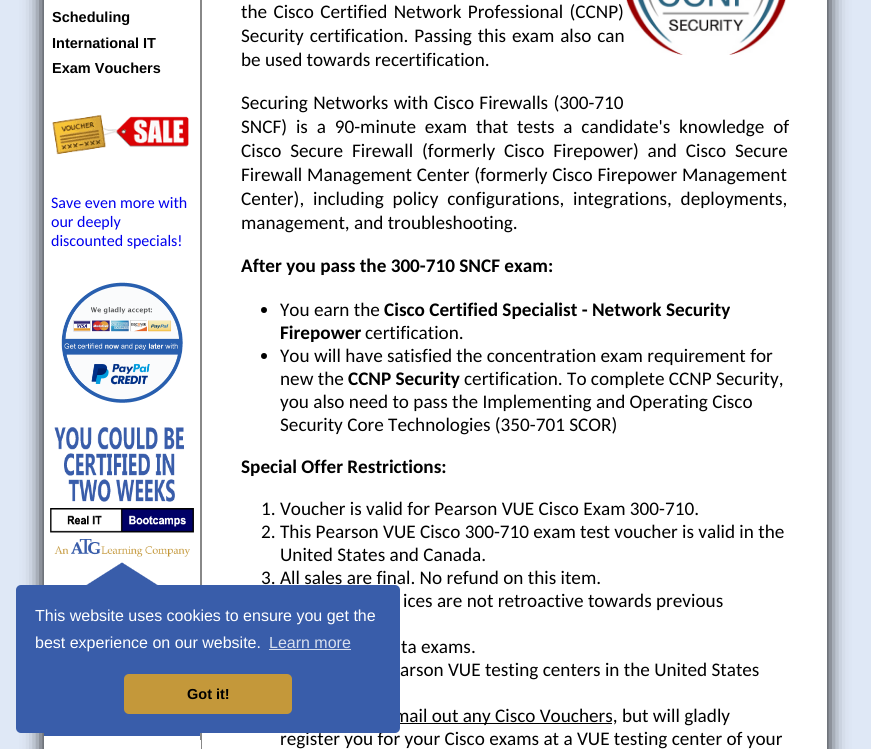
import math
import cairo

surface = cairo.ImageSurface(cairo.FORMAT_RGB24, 871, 749)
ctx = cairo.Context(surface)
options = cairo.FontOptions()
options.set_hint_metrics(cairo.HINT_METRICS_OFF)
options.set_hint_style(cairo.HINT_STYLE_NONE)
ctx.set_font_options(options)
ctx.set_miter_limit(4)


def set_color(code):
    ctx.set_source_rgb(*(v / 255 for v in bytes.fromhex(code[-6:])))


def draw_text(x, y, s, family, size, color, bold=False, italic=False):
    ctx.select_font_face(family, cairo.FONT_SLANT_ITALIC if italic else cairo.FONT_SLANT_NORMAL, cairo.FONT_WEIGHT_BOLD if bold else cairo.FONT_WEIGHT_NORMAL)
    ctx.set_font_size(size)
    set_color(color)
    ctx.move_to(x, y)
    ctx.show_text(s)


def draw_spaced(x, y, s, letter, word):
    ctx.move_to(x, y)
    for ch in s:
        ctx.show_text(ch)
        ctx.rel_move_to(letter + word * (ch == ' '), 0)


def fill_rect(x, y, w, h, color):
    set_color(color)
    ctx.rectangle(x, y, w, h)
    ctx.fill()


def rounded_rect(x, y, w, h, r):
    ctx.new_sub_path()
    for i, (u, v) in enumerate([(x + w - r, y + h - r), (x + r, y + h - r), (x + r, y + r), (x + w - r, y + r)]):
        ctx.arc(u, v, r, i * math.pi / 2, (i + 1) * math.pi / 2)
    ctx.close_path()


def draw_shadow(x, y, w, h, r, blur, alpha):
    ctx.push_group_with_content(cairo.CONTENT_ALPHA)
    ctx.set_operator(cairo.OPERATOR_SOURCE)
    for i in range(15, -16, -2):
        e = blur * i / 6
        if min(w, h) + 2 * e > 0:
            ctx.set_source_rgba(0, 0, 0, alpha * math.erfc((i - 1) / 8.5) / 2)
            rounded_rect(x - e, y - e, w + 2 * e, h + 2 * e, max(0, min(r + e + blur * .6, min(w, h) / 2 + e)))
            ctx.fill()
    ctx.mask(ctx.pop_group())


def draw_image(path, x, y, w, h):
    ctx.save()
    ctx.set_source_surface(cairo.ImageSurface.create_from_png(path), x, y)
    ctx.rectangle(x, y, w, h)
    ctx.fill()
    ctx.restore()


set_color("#dfe8f6")
ctx.paint()
set_color("#000000")
draw_shadow(44, -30, 783, 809, 0, 10, 1)
fill_rect(44, 0, 783, 749, "#ffffff")
fill_rect(200, 0, 1, 740, "#888888")
draw_text(52, 22, "Scheduling", "Liberation Sans", 14.5, "#000000", bold=True)
draw_text(52, 48, "International IT", "Liberation Sans", 14.5, "#000000", bold=True)
draw_text(52, 73, "Exam Vouchers", "Liberation Sans", 14.5, "#000000", bold=True)
draw_image("assets/img1.png", 52, 114, 137, 41)
draw_text(51, 208, "Save even more with", "Carlito", 16, "#0000ee")
draw_text(51, 227, "our deeply", "Carlito", 16, "#0000ee")
draw_text(51, 246, "discounted specials!", "Carlito", 16, "#0000ee")
draw_image("assets/img2.png", 61, 282, 122, 121)
draw_image("assets/img3.png", 44, 427, 156, 309)
fill_rect(201, 0, 1, 749, "#888888")
ctx.set_font_size(19.2)
set_color("#000000")
draw_spaced(241, 18, "the Cisco Certified Network Professional (CCNP)", 0, 2)
draw_spaced(241, 42, "Security certification. Passing this exam also can", 0, 1.5)
draw_text(241, 66, "be used towards recertification.", "Carlito", 19.2, "#000000")
draw_image("assets/img4.png", 626, 0, 160, 55)
draw_spaced(241, 109, "Securing Networks with Cisco Firewalls (300-710", 0, 1)
draw_spaced(241, 133, "SNCF) is a 90-minute exam that tests a candidate's knowledge of", 0, 4.5)
draw_spaced(241, 157, "Cisco Secure Firewall (formerly Cisco Firepower) and Cisco Secure", 0, 4.5)
draw_spaced(241, 181, "Firewall Management Center (formerly Cisco Firepower Management", 0, 0.5)
draw_spaced(241, 205, "Center), including policy configurations, integrations, deployments,", 0, 4.5)
draw_text(241, 229, "management, and troubleshooting.", "Carlito", 19.2, "#000000")
draw_text(241, 272, "After you pass the 300-710 SNCF exam:", "Carlito", 19.2, "#000000", bold=True)
ctx.new_path()
ctx.arc(264, 310, 3, 0, 2 * math.pi)
ctx.fill()
draw_text(280, 316, "You earn the", "Carlito", 19.2, "#000000")
draw_text(384, 316, "Cisco Certified Specialist - Network Security", "Carlito", 19.2, "#000000", bold=True)
draw_text(280, 339, "Firepower", "Carlito", 19.2, "#000000", bold=True)
draw_text(365, 339, "certification.", "Carlito", 19.2, "#000000")
ctx.new_path()
ctx.arc(264, 356, 3, 0, 2 * math.pi)
ctx.fill()
draw_text(280, 362, "You will have satisfied the concentration exam requirement for", "Carlito", 19.2, "#000000")
draw_text(280, 385, "new the", "Carlito", 19.2, "#000000")
draw_text(348, 385, "CCNP Security", "Carlito", 19.2, "#000000", bold=True)
draw_text(464, 385, "certification. To complete CCNP Security,", "Carlito", 19.2, "#000000")
draw_text(280, 408, "you also need to pass the Implementing and Operating Cisco", "Carlito", 19.2, "#000000")
draw_text(280, 431, "Security Core Technologies (350-701 SCOR)", "Carlito", 19.2, "#000000")
draw_text(241, 473, "Special Offer Restrictions:", "Carlito", 19.2, "#000000", bold=True)
draw_text(261, 515, "1. Voucher is valid for Pearson VUE Cisco Exam 300-710.", "Carlito", 19.2, "#000000")
draw_text(261, 538, "2. This Pearson VUE Cisco 300-710 exam test voucher is valid in the", "Carlito", 19.2, "#000000")
draw_text(280, 561, "United States and Canada.", "Carlito", 19.2, "#000000")
draw_text(261, 584, "3. All sales are final. No refund on this item.", "Carlito", 19.2, "#000000")
draw_text(403, 607, "ices are not retroactive towards previous", "Carlito", 19.2, "#000000")
draw_text(401, 653, "ta exams.", "Carlito", 19.2, "#000000")
draw_text(400, 676, "arson VUE testing centers in the United States", "Carlito", 19.2, "#000000")
fill_rect(400, 723, 212, 1, "#000000")
draw_text(394, 722, "mail out any Cisco Vouchers, but will gladly", "Carlito", 19.2, "#000000")
draw_text(280, 745, "register you for your Cisco exams at a VUE testing center of your", "Carlito", 19.2, "#000000")
set_color("#395daa")
rounded_rect(16, 585, 384, 148, 5)
ctx.fill()
draw_text(35, 621, "This website uses cookies to ensure you get the", "Liberation Sans", 16, "#ffffff")
draw_text(35, 648, "best experience on our website.", "Liberation Sans", 16, "#ffffff")
draw_text(269, 648, "Learn more", "Liberation Sans", 16, "#d7dfee")
fill_rect(269, 649, 82, 1, "#d7dfee")
set_color("#c4983a")
rounded_rect(124, 674, 168, 40, 5)
ctx.fill()
draw_text(187, 699, "Got it!", "Liberation Sans", 14.5, "#000000", bold=True)
surface.write_to_png("output.png")
